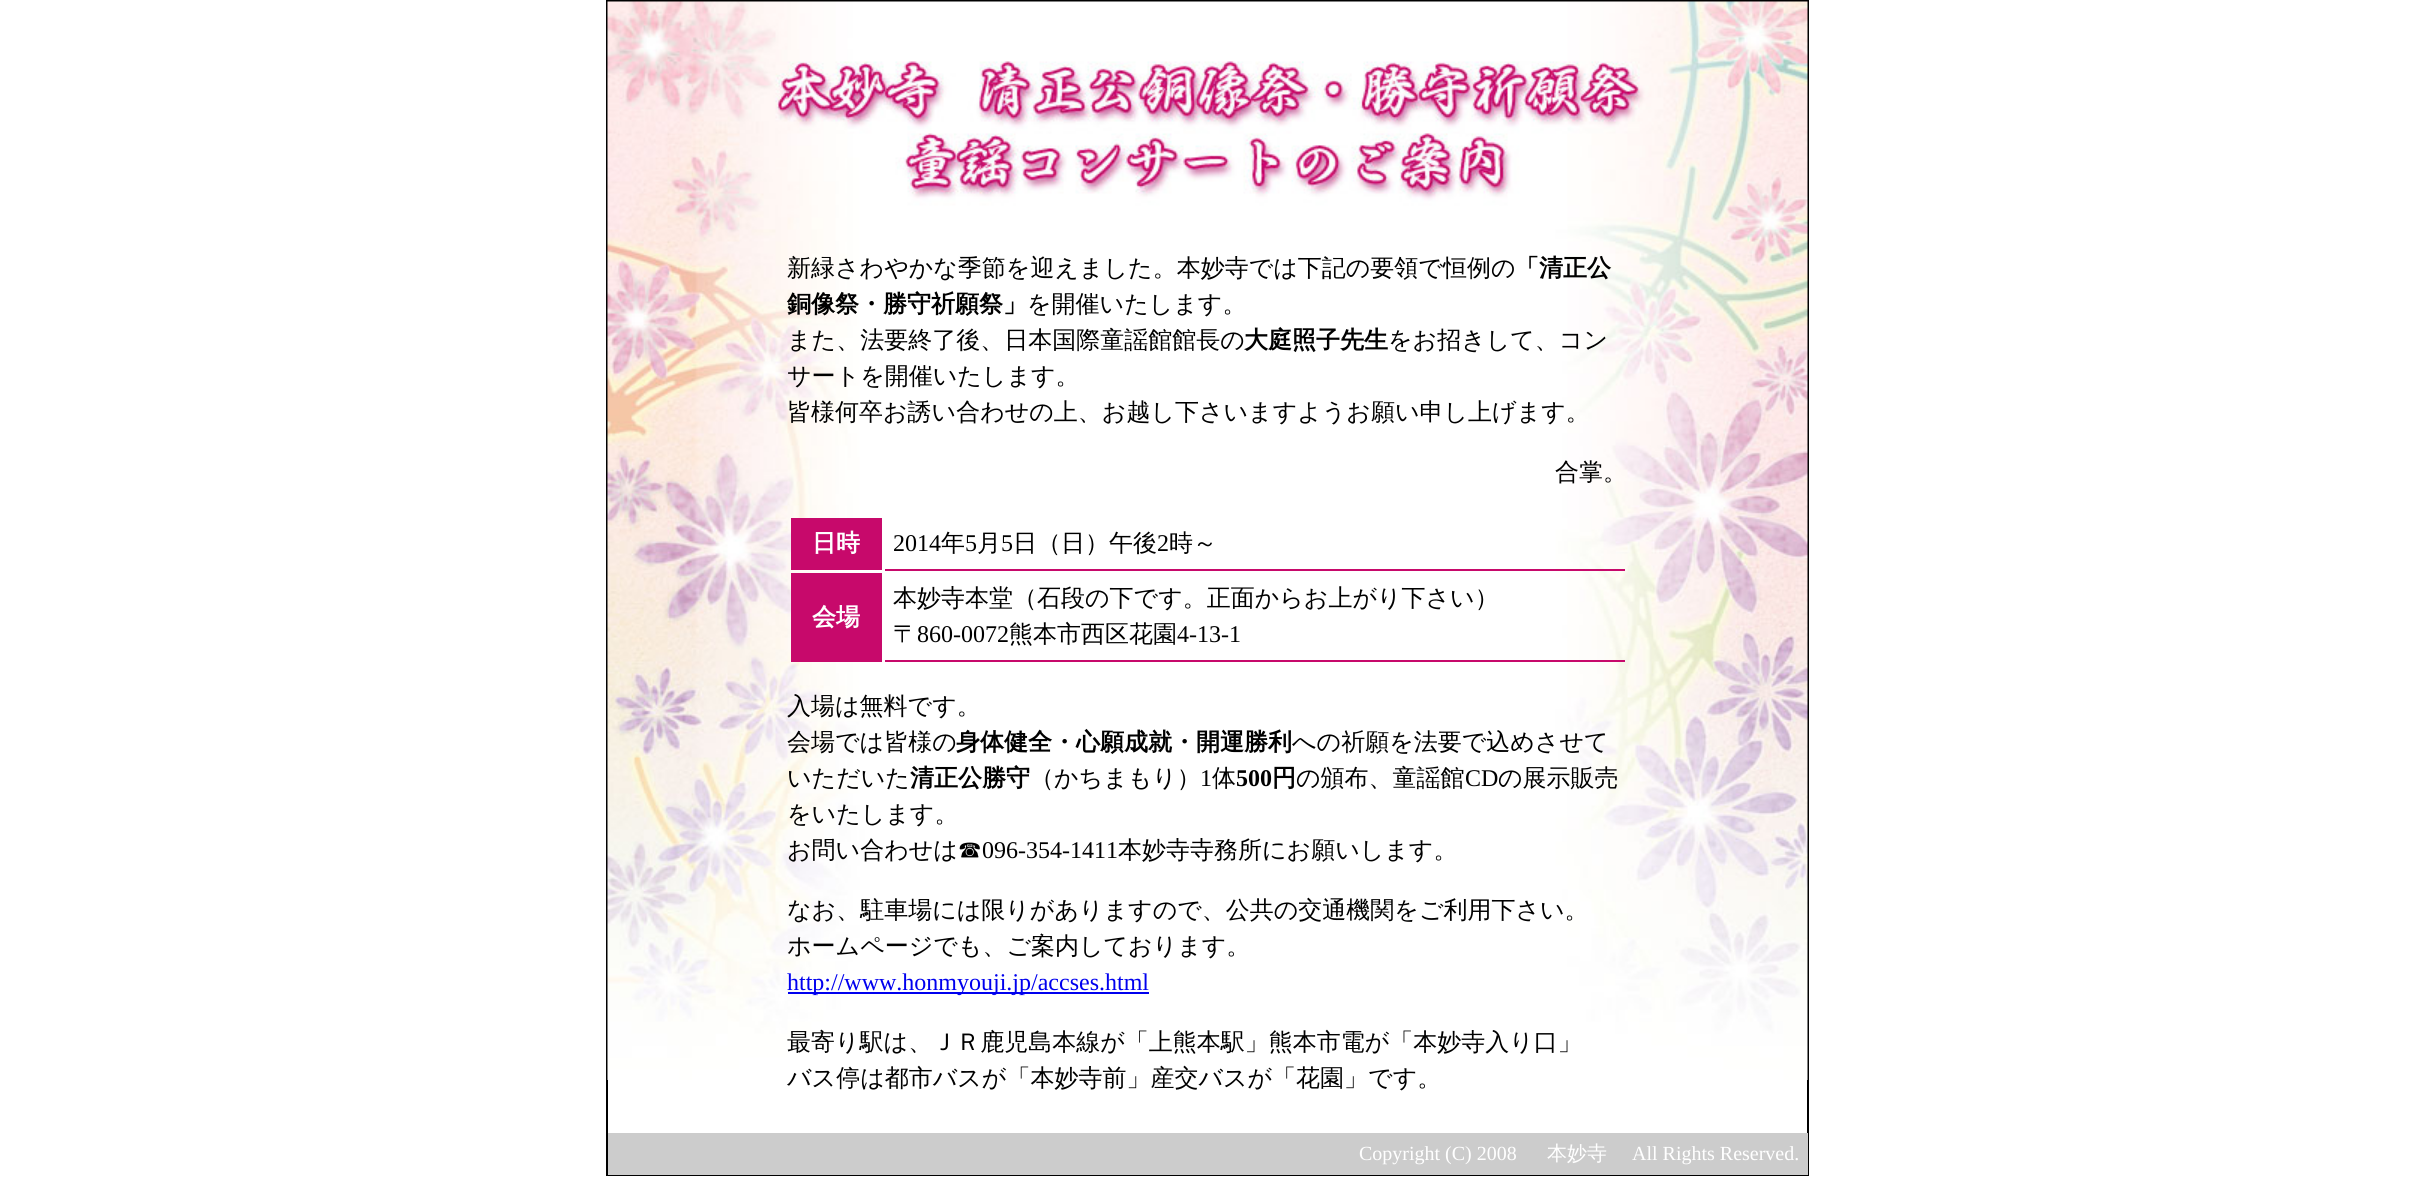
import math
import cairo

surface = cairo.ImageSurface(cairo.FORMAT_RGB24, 2413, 1199)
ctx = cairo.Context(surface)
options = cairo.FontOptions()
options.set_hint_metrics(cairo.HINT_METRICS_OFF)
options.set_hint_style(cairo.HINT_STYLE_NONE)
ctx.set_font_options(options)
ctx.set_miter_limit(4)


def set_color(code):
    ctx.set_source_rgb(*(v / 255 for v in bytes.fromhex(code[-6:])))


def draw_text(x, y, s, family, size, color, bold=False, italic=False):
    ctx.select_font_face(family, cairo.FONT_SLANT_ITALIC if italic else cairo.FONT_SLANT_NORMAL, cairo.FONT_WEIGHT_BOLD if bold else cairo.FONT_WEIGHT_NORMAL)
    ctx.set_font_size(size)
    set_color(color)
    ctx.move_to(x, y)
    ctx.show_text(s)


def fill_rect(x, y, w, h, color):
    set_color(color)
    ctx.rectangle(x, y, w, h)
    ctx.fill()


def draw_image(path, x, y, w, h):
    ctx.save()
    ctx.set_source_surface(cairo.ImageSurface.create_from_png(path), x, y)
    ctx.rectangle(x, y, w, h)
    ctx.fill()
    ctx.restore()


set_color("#ffffff")
ctx.paint()
ctx.rectangle(607, 1, 1201, 1174)
set_color("#000000")
ctx.stroke()
draw_image("assets/img1.png", 607, 1, 1201, 1079)
draw_text(787, 276, "新緑さわやかな季節を迎えました。本妙寺では下記の要領で恒例の", "WenQuanYi Zen Hei Medium", 24, "#000000")
draw_text(1515, 276, "「清正公", "WenQuanYi Zen Hei", 24, "#000000", bold=True)
draw_text(787, 312, "銅像祭・勝守祈願祭」", "WenQuanYi Zen Hei", 24, "#000000", bold=True)
draw_text(1027, 312, "を開催いたします。", "WenQuanYi Zen Hei Medium", 24, "#000000")
draw_text(787, 348, "また、法要終了後、日本国際童謡館館長の", "WenQuanYi Zen Hei Medium", 24, "#000000")
draw_text(1244, 348, "大庭照子先生", "WenQuanYi Zen Hei", 24, "#000000", bold=True)
draw_text(1388, 348, "をお招きして、コン", "WenQuanYi Zen Hei Medium", 24, "#000000")
draw_text(787, 384, "サートを開催いたします。", "WenQuanYi Zen Hei Medium", 24, "#000000")
draw_text(787, 420, "皆様何卒お誘い合わせの上、お越し下さいますようお願い申し上げます。", "WenQuanYi Zen Hei Medium", 24, "#000000")
draw_text(1555, 480, "合掌。", "WenQuanYi Zen Hei Medium", 24, "#000000")
fill_rect(791, 518, 91, 52, "#c7096b")
draw_text(812, 551, "日時", "WenQuanYi Zen Hei", 24, "#ffffff", bold=True)
fill_rect(885, 569, 740, 2, "#c7096b")
draw_text(893, 551, "2014", "Liberation Serif", 24, "#000000")
draw_text(941, 551, "年", "WenQuanYi Zen Hei Medium", 24, "#000000")
draw_text(965, 551, "5", "Liberation Serif", 24, "#000000")
draw_text(977, 551, "月", "WenQuanYi Zen Hei Medium", 24, "#000000")
draw_text(1001, 551, "5", "Liberation Serif", 24, "#000000")
draw_text(1013, 551, "日（日）午後", "WenQuanYi Zen Hei Medium", 24, "#000000")
draw_text(1157, 551, "2", "Liberation Serif", 24, "#000000")
draw_text(1169, 551, "時～", "WenQuanYi Zen Hei Medium", 24, "#000000")
fill_rect(791, 573, 91, 89, "#c7096b")
draw_text(812, 625, "会場", "WenQuanYi Zen Hei", 24, "#ffffff", bold=True)
fill_rect(885, 660, 740, 2, "#c7096b")
draw_text(893, 606, "本妙寺本堂（石段の下です。正面からお上がり下さい）", "WenQuanYi Zen Hei Medium", 24, "#000000")
draw_text(893, 642, "〒", "WenQuanYi Zen Hei Medium", 24, "#000000")
draw_text(917, 642, "860-0072", "Liberation Serif", 24, "#000000")
draw_text(1009, 642, "熊本市西区花園", "WenQuanYi Zen Hei Medium", 24, "#000000")
draw_text(1177, 642, "4-13-1", "Liberation Serif", 24, "#000000")
draw_text(787, 714, "入場は無料です。", "WenQuanYi Zen Hei Medium", 24, "#000000")
draw_text(787, 750, "会場では皆様の", "WenQuanYi Zen Hei Medium", 24, "#000000")
draw_text(956, 750, "身体健全・心願成就・開運勝利", "WenQuanYi Zen Hei", 24, "#000000", bold=True)
draw_text(1292, 750, "への祈願を法要で込めさせて", "WenQuanYi Zen Hei Medium", 24, "#000000")
draw_text(787, 786, "いただいた", "WenQuanYi Zen Hei Medium", 24, "#000000")
draw_text(910, 786, "清正公勝守", "WenQuanYi Zen Hei", 24, "#000000", bold=True)
draw_text(1030, 786, "（かちまもり）", "WenQuanYi Zen Hei Medium", 24, "#000000")
draw_text(1200, 786, "1", "Liberation Serif", 24, "#000000")
draw_text(1212, 786, "体", "WenQuanYi Zen Hei Medium", 24, "#000000")
draw_text(1236, 786, "500", "Liberation Serif", 24, "#000000", bold=True)
draw_text(1272, 786, "円", "WenQuanYi Zen Hei", 24, "#000000", bold=True)
draw_text(1296, 786, "の頒布、童謡館", "WenQuanYi Zen Hei Medium", 24, "#000000")
draw_text(1465, 786, "CD", "Liberation Serif", 24, "#000000")
draw_text(1498, 786, "の展示販売", "WenQuanYi Zen Hei Medium", 24, "#000000")
draw_text(787, 822, "をいたします。", "WenQuanYi Zen Hei Medium", 24, "#000000")
draw_text(787, 858, "お問い合わせは☎", "WenQuanYi Zen Hei Medium", 24, "#000000")
draw_text(982, 858, "096-354-1411", "Liberation Serif", 24, "#000000")
draw_text(1118, 858, "本妙寺寺務所にお願いします。", "WenQuanYi Zen Hei Medium", 24, "#000000")
draw_text(787, 918, "なお、駐車場には限りがありますので、公共の交通機関をご利用下さい。", "WenQuanYi Zen Hei Medium", 24, "#000000")
draw_text(787, 954, "ホームページでも、ご案内しております。", "WenQuanYi Zen Hei Medium", 24, "#000000")
fill_rect(788, 992, 361, 2, "#0000ee")
draw_text(787, 990, "http://www.honmyouji.jp/accses.html", "Liberation Serif", 24, "#0000ee")
draw_text(787, 1050, "最寄り駅は、ＪＲ鹿児島本線が「上熊本駅」熊本市電が「本妙寺入り口」", "WenQuanYi Zen Hei Medium", 24, "#000000")
draw_text(787, 1086, "バス停は都市バスが「本妙寺前」産交バスが「花園」です。", "WenQuanYi Zen Hei Medium", 24, "#000000")
fill_rect(608, 1133, 1200, 42, "#cccccc")
draw_text(1359, 1160, "Copyright (C) 2008", "Liberation Serif", 20, "#ffffff")
draw_text(1547, 1160, "本妙寺", "WenQuanYi Zen Hei Medium", 20, "#ffffff")
draw_text(1632, 1160, "All Rights Reserved.", "Liberation Serif", 20, "#ffffff")
surface.write_to_png("output.png")
